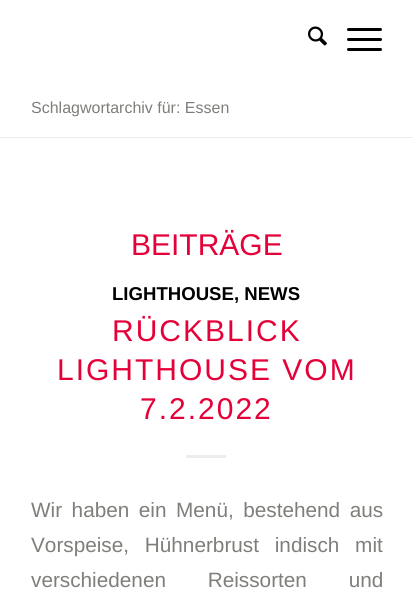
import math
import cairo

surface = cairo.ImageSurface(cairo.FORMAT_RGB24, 413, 606)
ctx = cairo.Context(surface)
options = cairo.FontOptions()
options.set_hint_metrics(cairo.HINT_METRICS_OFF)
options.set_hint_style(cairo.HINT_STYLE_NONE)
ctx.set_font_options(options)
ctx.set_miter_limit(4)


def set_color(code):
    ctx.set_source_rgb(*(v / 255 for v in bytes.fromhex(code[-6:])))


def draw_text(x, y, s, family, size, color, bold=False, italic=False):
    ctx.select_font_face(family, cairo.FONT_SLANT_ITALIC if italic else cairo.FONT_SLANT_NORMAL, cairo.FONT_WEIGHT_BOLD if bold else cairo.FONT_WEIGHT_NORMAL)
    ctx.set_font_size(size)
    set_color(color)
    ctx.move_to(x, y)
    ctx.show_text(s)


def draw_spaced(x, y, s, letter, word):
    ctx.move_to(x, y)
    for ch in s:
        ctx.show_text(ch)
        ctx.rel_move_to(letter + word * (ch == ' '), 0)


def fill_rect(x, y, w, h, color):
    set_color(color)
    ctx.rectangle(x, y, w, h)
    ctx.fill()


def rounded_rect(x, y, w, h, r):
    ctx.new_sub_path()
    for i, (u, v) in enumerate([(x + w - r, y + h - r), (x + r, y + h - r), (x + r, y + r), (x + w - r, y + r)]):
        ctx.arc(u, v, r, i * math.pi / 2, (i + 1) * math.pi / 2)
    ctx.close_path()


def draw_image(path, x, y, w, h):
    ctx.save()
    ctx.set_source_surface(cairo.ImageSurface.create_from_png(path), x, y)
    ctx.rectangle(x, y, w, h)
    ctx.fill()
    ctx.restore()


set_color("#ffffff")
ctx.paint()
draw_image("assets/img1.png", 308, 26, 19, 20)
set_color("#000000")
rounded_rect(347, 38, 35, 3, 1.5)
ctx.fill()
rounded_rect(347, 28, 35, 3, 1.5)
ctx.fill()
rounded_rect(347, 48, 35, 3, 1.5)
ctx.fill()
draw_text(31, 113, "Schlagwortarchiv für: Essen", "Liberation Sans", 16, "#7f7e7b")
fill_rect(0, 137, 413, 1, "#ececec")
draw_text(131, 255, "BEITRÄGE", "Liberation Sans", 30, "#e40039")
draw_text(112, 300, "LIGHTHOUSE, NEWS", "Liberation Sans", 18.6, "#000000", bold=True)
ctx.select_font_face("Liberation Sans")
ctx.set_font_size(30)
set_color("#e40039")
draw_spaced(112, 341, "RÜCKBLICK", 2, 0)
draw_spaced(57, 380, "LIGHTHOUSE VOM", 2, 0)
draw_spaced(140, 419, "7.2.2022", 2, 0)
fill_rect(186, 455, 40, 3, "#ececec")
ctx.set_font_size(20.75)
set_color("#7f7e7b")
draw_spaced(31, 517, "Wir haben ein Menü, bestehend aus", 0, 3.75)
draw_spaced(31, 552, "Vorspeise, Hühnerbrust indisch mit", 0, 10)
draw_spaced(31, 587, "verschiedenen Reissorten und", 0, 36)
surface.write_to_png("output.png")
